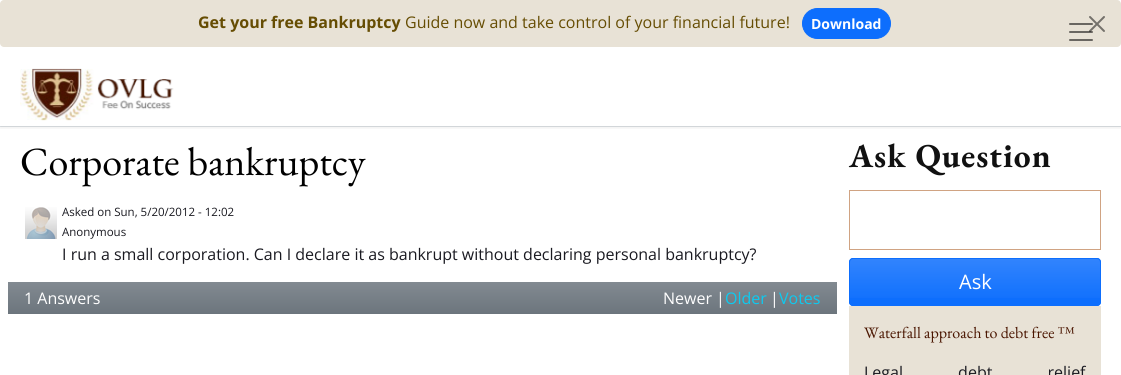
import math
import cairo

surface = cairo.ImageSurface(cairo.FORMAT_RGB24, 1121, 375)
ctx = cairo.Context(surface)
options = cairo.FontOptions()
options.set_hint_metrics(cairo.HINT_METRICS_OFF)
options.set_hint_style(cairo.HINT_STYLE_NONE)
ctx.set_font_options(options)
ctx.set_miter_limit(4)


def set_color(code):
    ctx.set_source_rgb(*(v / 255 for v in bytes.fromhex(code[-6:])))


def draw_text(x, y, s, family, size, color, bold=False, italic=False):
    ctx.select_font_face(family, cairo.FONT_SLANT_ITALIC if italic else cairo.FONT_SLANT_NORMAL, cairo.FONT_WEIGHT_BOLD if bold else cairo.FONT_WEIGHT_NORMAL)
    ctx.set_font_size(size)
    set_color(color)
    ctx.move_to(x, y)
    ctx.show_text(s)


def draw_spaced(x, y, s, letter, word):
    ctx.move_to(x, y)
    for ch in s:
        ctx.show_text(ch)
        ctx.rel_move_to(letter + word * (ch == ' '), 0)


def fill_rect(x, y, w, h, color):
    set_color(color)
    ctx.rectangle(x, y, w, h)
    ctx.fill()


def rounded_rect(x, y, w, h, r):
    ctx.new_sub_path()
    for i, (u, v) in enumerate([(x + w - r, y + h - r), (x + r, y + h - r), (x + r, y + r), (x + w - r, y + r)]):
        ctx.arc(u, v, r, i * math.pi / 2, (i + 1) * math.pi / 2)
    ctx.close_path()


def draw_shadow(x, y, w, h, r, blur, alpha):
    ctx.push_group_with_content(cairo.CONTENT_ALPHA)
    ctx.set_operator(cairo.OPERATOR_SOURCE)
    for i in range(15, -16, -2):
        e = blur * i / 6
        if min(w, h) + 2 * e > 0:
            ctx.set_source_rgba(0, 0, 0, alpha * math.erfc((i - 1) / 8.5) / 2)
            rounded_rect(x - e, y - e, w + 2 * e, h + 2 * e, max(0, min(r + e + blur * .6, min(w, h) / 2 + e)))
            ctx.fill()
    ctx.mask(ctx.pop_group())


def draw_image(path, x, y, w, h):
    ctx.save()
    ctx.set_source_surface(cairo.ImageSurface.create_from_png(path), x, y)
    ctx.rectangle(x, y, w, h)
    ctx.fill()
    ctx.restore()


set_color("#ffffff")
ctx.paint()
set_color("#e8e2d6")
rounded_rect(0, 0, 1121, 47, 4)
ctx.fill()
draw_text(198, 28, "Get your free Bankruptcy", "Open Sans", 16, "#664d03", bold=True)
draw_text(405, 28, "Guide now and take control of your financial future!", "Open Sans", 16, "#664d03")
set_color("#0d6efd")
rounded_rect(802.5, 8.5, 88, 30, 15)
ctx.fill_preserve()
ctx.set_line_width(1)
ctx.stroke()
draw_text(811, 29, "Download", "Open Sans", 14, "#ffffff", bold=True)
draw_image("assets/img1.png", 1089, 16, 16, 16)
fill_rect(0, 126, 1121, 1, "#dee2e6")
ctx.save()
ctx.rectangle(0, 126, 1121, 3)
ctx.clip()
set_color("#000000")
draw_shadow(0, 65, 1121, 63, 0, 2, 0.07)
ctx.restore()
draw_image("assets/img2.png", 1069, 23, 24, 18)
draw_image("assets/img3.png", 20, 68, 154, 53)
draw_text(20, 175, "Corporate bankruptcy", "EB Garamond", 40, "#000000")
draw_image("assets/img4.png", 25, 207, 32, 32)
draw_text(62, 216, "Asked on Sun, 5/20/2012 - 12:02", "Open Sans", 11.5, "#1a1a21")
draw_text(62, 236, "Anonymous", "Open Sans", 11.5, "#1a1a21")
draw_text(62, 260, "I run a small corporation. Can I declare it as bankrupt without declaring personal bankruptcy?", "Open Sans", 16, "#1a1a21")
gradient = cairo.LinearGradient(423, 282, 423, 314)
gradient.add_color_stop_rgba(0, 0.51, 0.541, 0.569, 1)
gradient.add_color_stop_rgba(1, 0.424, 0.459, 0.49, 1)
ctx.set_source(gradient)
ctx.rectangle(8, 282, 829, 32)
ctx.fill()
draw_text(24, 304, "1 Answers", "Open Sans", 16, "#ffffff")
draw_text(663, 304, "Newer |", "Open Sans", 16, "#ffffff")
draw_text(725, 304, "Older", "Open Sans", 16, "#0dcaf0")
draw_text(770, 304, "|", "Open Sans", 16, "#ffffff")
draw_text(779, 304, "Votes", "Open Sans", 16, "#0dcaf0")
ctx.select_font_face("EB Garamond", cairo.FONT_SLANT_NORMAL, cairo.FONT_WEIGHT_BOLD)
ctx.set_font_size(33.5)
set_color("#111111")
draw_spaced(849, 167, "Ask Question", 1, 0)
ctx.rectangle(849.5, 190.5, 251, 59)
set_color("#d0a382")
ctx.stroke()
set_color("#0d6efd")
rounded_rect(849, 258, 252, 48, 4)
ctx.fill()
gradient = cairo.LinearGradient(975, 259, 975, 305)
gradient.add_color_stop_rgba(0, 1, 1, 1, 0.15)
gradient.add_color_stop_rgba(1, 1, 1, 1, 0)
ctx.set_source(gradient)
ctx.rectangle(849, 259, 252, 39)
ctx.fill()
rounded_rect(849.5, 258.5, 251, 47, 3.5)
set_color("#0d6efd")
ctx.stroke()
draw_text(959, 289, "Ask", "Open Sans", 20, "#ffffff")
fill_rect(849, 306, 252, 69, "#e8e2d6")
draw_text(864, 338, "Waterfall approach to debt free ™", "EB Garamond", 16, "#4a1500")
ctx.select_font_face("Open Sans")
set_color("#1a1a21")
draw_spaced(864, 378, "Legal debt relief", 0, 51)
surface.write_to_png("output.png")
